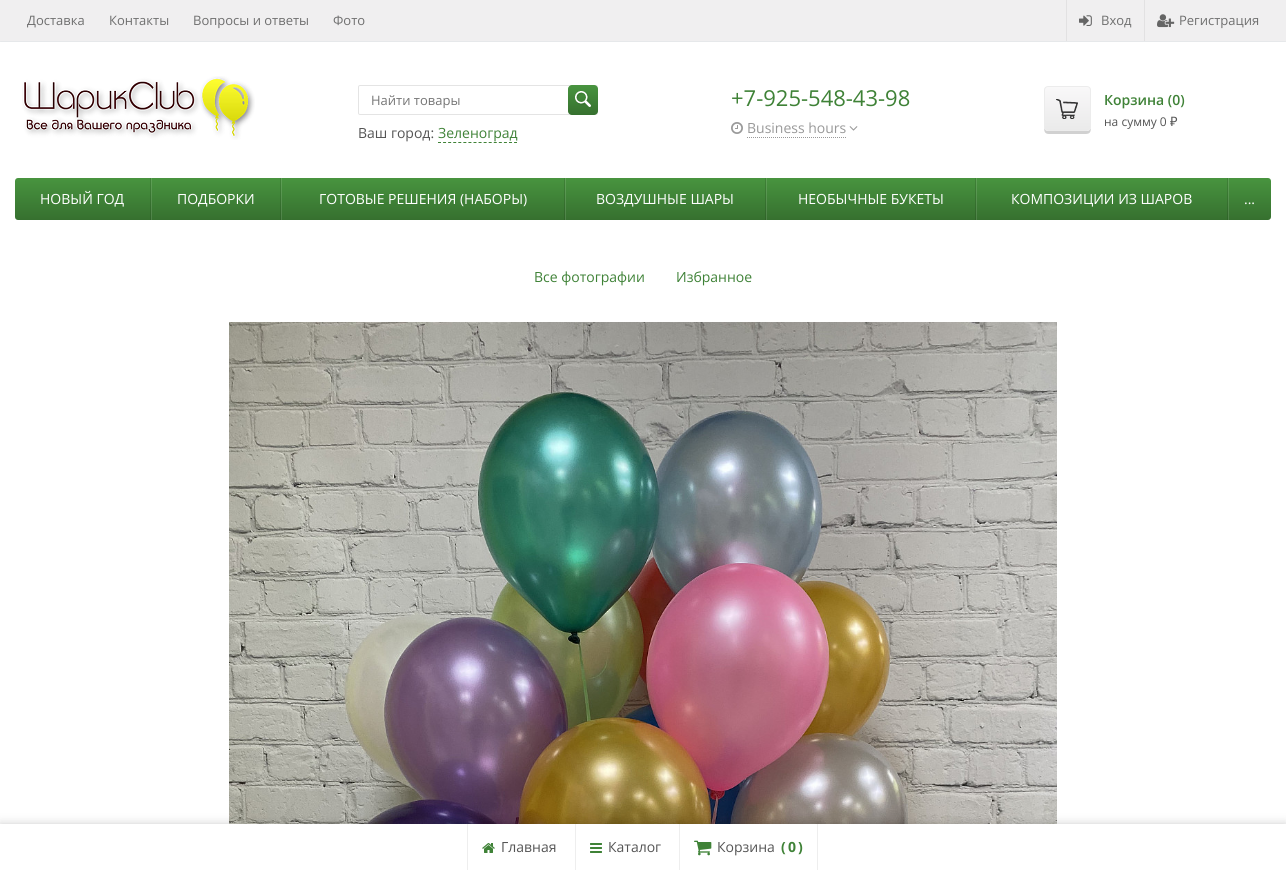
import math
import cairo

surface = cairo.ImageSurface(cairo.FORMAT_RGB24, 1286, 870)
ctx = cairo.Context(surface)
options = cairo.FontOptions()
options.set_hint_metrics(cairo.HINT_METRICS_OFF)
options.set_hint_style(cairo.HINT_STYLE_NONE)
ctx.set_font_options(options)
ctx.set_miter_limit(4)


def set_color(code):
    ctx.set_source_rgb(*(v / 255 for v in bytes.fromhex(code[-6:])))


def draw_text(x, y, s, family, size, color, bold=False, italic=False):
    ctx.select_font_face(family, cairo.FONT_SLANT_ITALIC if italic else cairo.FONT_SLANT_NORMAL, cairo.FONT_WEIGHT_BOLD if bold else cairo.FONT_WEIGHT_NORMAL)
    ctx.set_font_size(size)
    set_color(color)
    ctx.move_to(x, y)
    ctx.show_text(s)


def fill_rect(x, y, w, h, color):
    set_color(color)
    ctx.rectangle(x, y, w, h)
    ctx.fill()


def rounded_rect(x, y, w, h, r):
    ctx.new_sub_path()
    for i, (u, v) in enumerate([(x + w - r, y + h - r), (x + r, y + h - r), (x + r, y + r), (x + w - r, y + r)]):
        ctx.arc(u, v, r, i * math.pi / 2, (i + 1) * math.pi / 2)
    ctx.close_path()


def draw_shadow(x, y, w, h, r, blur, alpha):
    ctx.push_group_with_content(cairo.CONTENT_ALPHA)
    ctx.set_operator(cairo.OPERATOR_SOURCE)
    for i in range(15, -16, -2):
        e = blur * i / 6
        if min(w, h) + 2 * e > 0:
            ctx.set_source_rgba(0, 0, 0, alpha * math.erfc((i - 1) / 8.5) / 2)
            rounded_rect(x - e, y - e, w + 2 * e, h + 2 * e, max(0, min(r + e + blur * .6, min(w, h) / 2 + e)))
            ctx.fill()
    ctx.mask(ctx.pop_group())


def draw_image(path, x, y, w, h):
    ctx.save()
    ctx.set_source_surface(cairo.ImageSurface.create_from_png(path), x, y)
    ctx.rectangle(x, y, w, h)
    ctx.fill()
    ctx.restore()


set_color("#ffffff")
ctx.paint()
fill_rect(0, 0, 1286, 42, "#f0eff0")
set_color("#e6e8ea")
rounded_rect(0, 41, 1286, 1, 0.5)
ctx.fill()
draw_text(27, 25, "Доставка", "Open Sans", 13, "#6f6f6f")
draw_text(109, 25, "Контакты", "Open Sans", 13, "#6f6f6f")
draw_text(193, 25, "Вопросы и ответы", "Open Sans", 13, "#6f6f6f")
draw_text(333, 25, "Фото", "Open Sans", 13, "#6f6f6f")
fill_rect(1066, 0, 1, 41, "#e2e1e2")
draw_image("assets/img1.png", 1079, 15, 13, 11)
draw_text(1101, 25, "Вход", "Open Sans", 13, "#6f6f6f")
fill_rect(1144, 0, 1, 41, "#e2e1e2")
draw_image("assets/img2.png", 1157, 14, 18, 14)
draw_text(1179, 25, "Регистрация", "Open Sans", 13, "#6f6f6f")
draw_image("assets/img3.png", 22, 76, 233, 64)
rounded_rect(358.5, 85.5, 239, 29, 1.5)
set_color("#e4e4e4")
ctx.set_line_width(1)
ctx.stroke()
draw_text(371, 105, "Найти товары", "Open Sans", 13, "#757575")
gradient = cairo.LinearGradient(583, 85, 583, 115)
gradient.add_color_stop_rgba(0, 0.282, 0.58, 0.247, 1)
gradient.add_color_stop_rgba(1, 0.212, 0.439, 0.184, 1)
ctx.set_source(gradient)
rounded_rect(568, 85, 30, 30, 4)
ctx.fill()
draw_image("assets/img4.png", 575, 91, 16, 16)
draw_text(358, 138, "Ваш город:", "Open Sans", 14, "#555555")
draw_text(438, 138, "Зеленоград", "Open Sans", 14, "#3f8237")
ctx.new_path()
ctx.move_to(438, 142.5)
ctx.line_to(517, 142.5)
ctx.set_dash([3, 2.07])
ctx.stroke()
draw_text(731, 106, "+7-925-548-43-98", "Open Sans", 22, "#3f8237")
draw_image("assets/img5.png", 731, 122, 12, 12)
draw_text(747, 133, "Business hours", "Open Sans", 14, "#999999")
ctx.new_path()
ctx.move_to(747, 137.5)
ctx.line_to(846, 137.5)
ctx.set_dash([1, 1])
ctx.stroke()
draw_image("assets/img6.png", 849, 126, 9, 5)
set_color("#d1d1d1")
ctx.new_path()
ctx.move_to(1044, 127)
ctx.curve_to(1044, 135, 1047, 134, 1054, 134)
ctx.line_to(1080, 134)
ctx.curve_to(1088, 134, 1091, 135, 1091, 127)
ctx.curve_to(1091, 129, 1089, 131, 1087, 131)
ctx.line_to(1048, 131)
ctx.curve_to(1046, 131, 1044, 129, 1044, 127)
ctx.close_path()
ctx.fill()
ctx.save()
rounded_rect(1044, 86, 47, 45, 4)
ctx.clip()
gradient = cairo.LinearGradient(1068, 87, 1068, 130)
gradient.add_color_stop_rgba(0, 0.976, 0.973, 0.976, 1)
gradient.add_color_stop_rgba(1, 0.918, 0.918, 0.918, 1)
ctx.set_source(gradient)
ctx.rectangle(1044, 87, 47, 43)
ctx.fill()
ctx.restore()
rounded_rect(1044.5, 86.5, 46, 44, 3.5)
set_color("#ececec")
ctx.set_dash([])
ctx.stroke()
draw_image("assets/img7.png", 1056, 99, 22, 20)
draw_text(1104, 105, "Корзина (0)", "Open Sans SemiBold", 14, "#3f8237")
draw_text(1104, 126, "на сумму 0", "Open Sans", 12, "#555555")
draw_text(1170, 126, "₽", "Noto Sans", 13, "#555555")
gradient = cairo.LinearGradient(643, 178, 643, 220)
gradient.add_color_stop_rgba(0, 0.282, 0.58, 0.247, 1)
gradient.add_color_stop_rgba(1, 0.212, 0.439, 0.184, 1)
ctx.set_source(gradient)
rounded_rect(15, 178, 1256, 42, 3)
ctx.fill()
gradient = cairo.LinearGradient(643, 178, 643, 220)
gradient.add_color_stop_rgba(0, 0.369, 0.631, 0.337, 1)
gradient.add_color_stop_rgba(1, 0.306, 0.506, 0.282, 1)
ctx.set_source(gradient)
ctx.rectangle(1228, 178, 1, 42)
ctx.fill()
ctx.rectangle(976, 178, 1, 42)
ctx.fill()
gradient = cairo.LinearGradient(643, 178, 643, 220)
gradient.add_color_stop_rgba(0, 0.247, 0.51, 0.216, 1)
gradient.add_color_stop_rgba(1, 0.188, 0.388, 0.161, 1)
ctx.set_source(gradient)
ctx.rectangle(1227, 178, 1, 42)
ctx.fill()
gradient = cairo.LinearGradient(643, 178, 643, 220)
gradient.add_color_stop_rgba(0, 0.369, 0.631, 0.337, 1)
gradient.add_color_stop_rgba(1, 0.306, 0.506, 0.282, 1)
ctx.set_source(gradient)
ctx.rectangle(766, 178, 1, 42)
ctx.fill()
gradient = cairo.LinearGradient(643, 178, 643, 220)
gradient.add_color_stop_rgba(0, 0.247, 0.51, 0.216, 1)
gradient.add_color_stop_rgba(1, 0.188, 0.388, 0.161, 1)
ctx.set_source(gradient)
ctx.rectangle(975, 178, 1, 42)
ctx.fill()
gradient = cairo.LinearGradient(643, 178, 643, 220)
gradient.add_color_stop_rgba(0, 0.369, 0.631, 0.337, 1)
gradient.add_color_stop_rgba(1, 0.306, 0.506, 0.282, 1)
ctx.set_source(gradient)
ctx.rectangle(565, 178, 1, 42)
ctx.fill()
gradient = cairo.LinearGradient(643, 178, 643, 220)
gradient.add_color_stop_rgba(0, 0.247, 0.51, 0.216, 1)
gradient.add_color_stop_rgba(1, 0.188, 0.388, 0.161, 1)
ctx.set_source(gradient)
ctx.rectangle(765, 178, 1, 42)
ctx.fill()
gradient = cairo.LinearGradient(643, 178, 643, 220)
gradient.add_color_stop_rgba(0, 0.369, 0.631, 0.337, 1)
gradient.add_color_stop_rgba(1, 0.306, 0.506, 0.282, 1)
ctx.set_source(gradient)
ctx.rectangle(281, 178, 1, 42)
ctx.fill()
gradient = cairo.LinearGradient(643, 178, 643, 220)
gradient.add_color_stop_rgba(0, 0.247, 0.51, 0.216, 1)
gradient.add_color_stop_rgba(1, 0.188, 0.388, 0.161, 1)
ctx.set_source(gradient)
ctx.rectangle(564, 178, 1, 42)
ctx.fill()
gradient = cairo.LinearGradient(643, 178, 643, 220)
gradient.add_color_stop_rgba(0, 0.369, 0.631, 0.337, 1)
gradient.add_color_stop_rgba(1, 0.306, 0.506, 0.282, 1)
ctx.set_source(gradient)
ctx.rectangle(151, 178, 1, 42)
ctx.fill()
gradient = cairo.LinearGradient(643, 178, 643, 220)
gradient.add_color_stop_rgba(0, 0.247, 0.51, 0.216, 1)
gradient.add_color_stop_rgba(1, 0.188, 0.388, 0.161, 1)
ctx.set_source(gradient)
ctx.rectangle(280, 178, 1, 42)
ctx.fill()
ctx.rectangle(150, 178, 1, 42)
ctx.fill()
draw_text(40, 204, "НОВЫЙ ГОД", "Open Sans", 14, "#ffffff")
draw_text(177, 204, "ПОДБОРКИ", "Open Sans", 14, "#ffffff")
draw_text(319, 204, "ГОТОВЫЕ РЕШЕНИЯ (НАБОРЫ)", "Open Sans", 14, "#ffffff")
draw_text(596, 204, "ВОЗДУШНЫЕ ШАРЫ", "Open Sans", 14, "#ffffff")
draw_text(798, 204, "НЕОБЫЧНЫЕ БУКЕТЫ", "Open Sans", 14, "#ffffff")
draw_text(1011, 204, "КОМПОЗИЦИИ ИЗ ШАРОВ", "Open Sans", 14, "#ffffff")
draw_text(1244, 204, "...", "Open Sans", 14, "#ffffff")
draw_text(534, 282, "Все фотографии", "Open Sans", 14, "#3f8237")
draw_text(676, 282, "Избранное", "Open Sans", 14, "#3f8237")
draw_image("assets/img8.png", 229, 322, 828, 502)
set_color("#000000")
draw_shadow(0, 824, 1286, 46, 0, 5, 0.2)
fill_rect(0, 824, 1286, 46, "#ffffff")
fill_rect(467, 824, 1, 46, "#eeeeee")
draw_image("assets/img9.png", 482, 843, 13, 10)
draw_text(501, 852, "Главная", "Open Sans", 14, "#555555")
fill_rect(575, 824, 1, 46, "#eeeeee")
draw_image("assets/img10.png", 590, 843, 12, 10)
draw_text(608, 852, "Каталог", "Open Sans", 14, "#555555")
fill_rect(817, 824, 1, 46, "#eeeeee")
fill_rect(679, 824, 1, 46, "#eeeeee")
draw_image("assets/img11.png", 694, 840, 18, 16)
draw_text(717, 852, "Корзина", "Open Sans", 14, "#555555")
draw_text(781, 852, "(", "Open Sans", 14, "#3f8237", bold=True)
draw_text(788, 852, "0", "Open Sans", 14, "#3f8237", bold=True)
draw_text(798, 852, ")", "Open Sans", 14, "#3f8237", bold=True)
surface.write_to_png("output.png")
